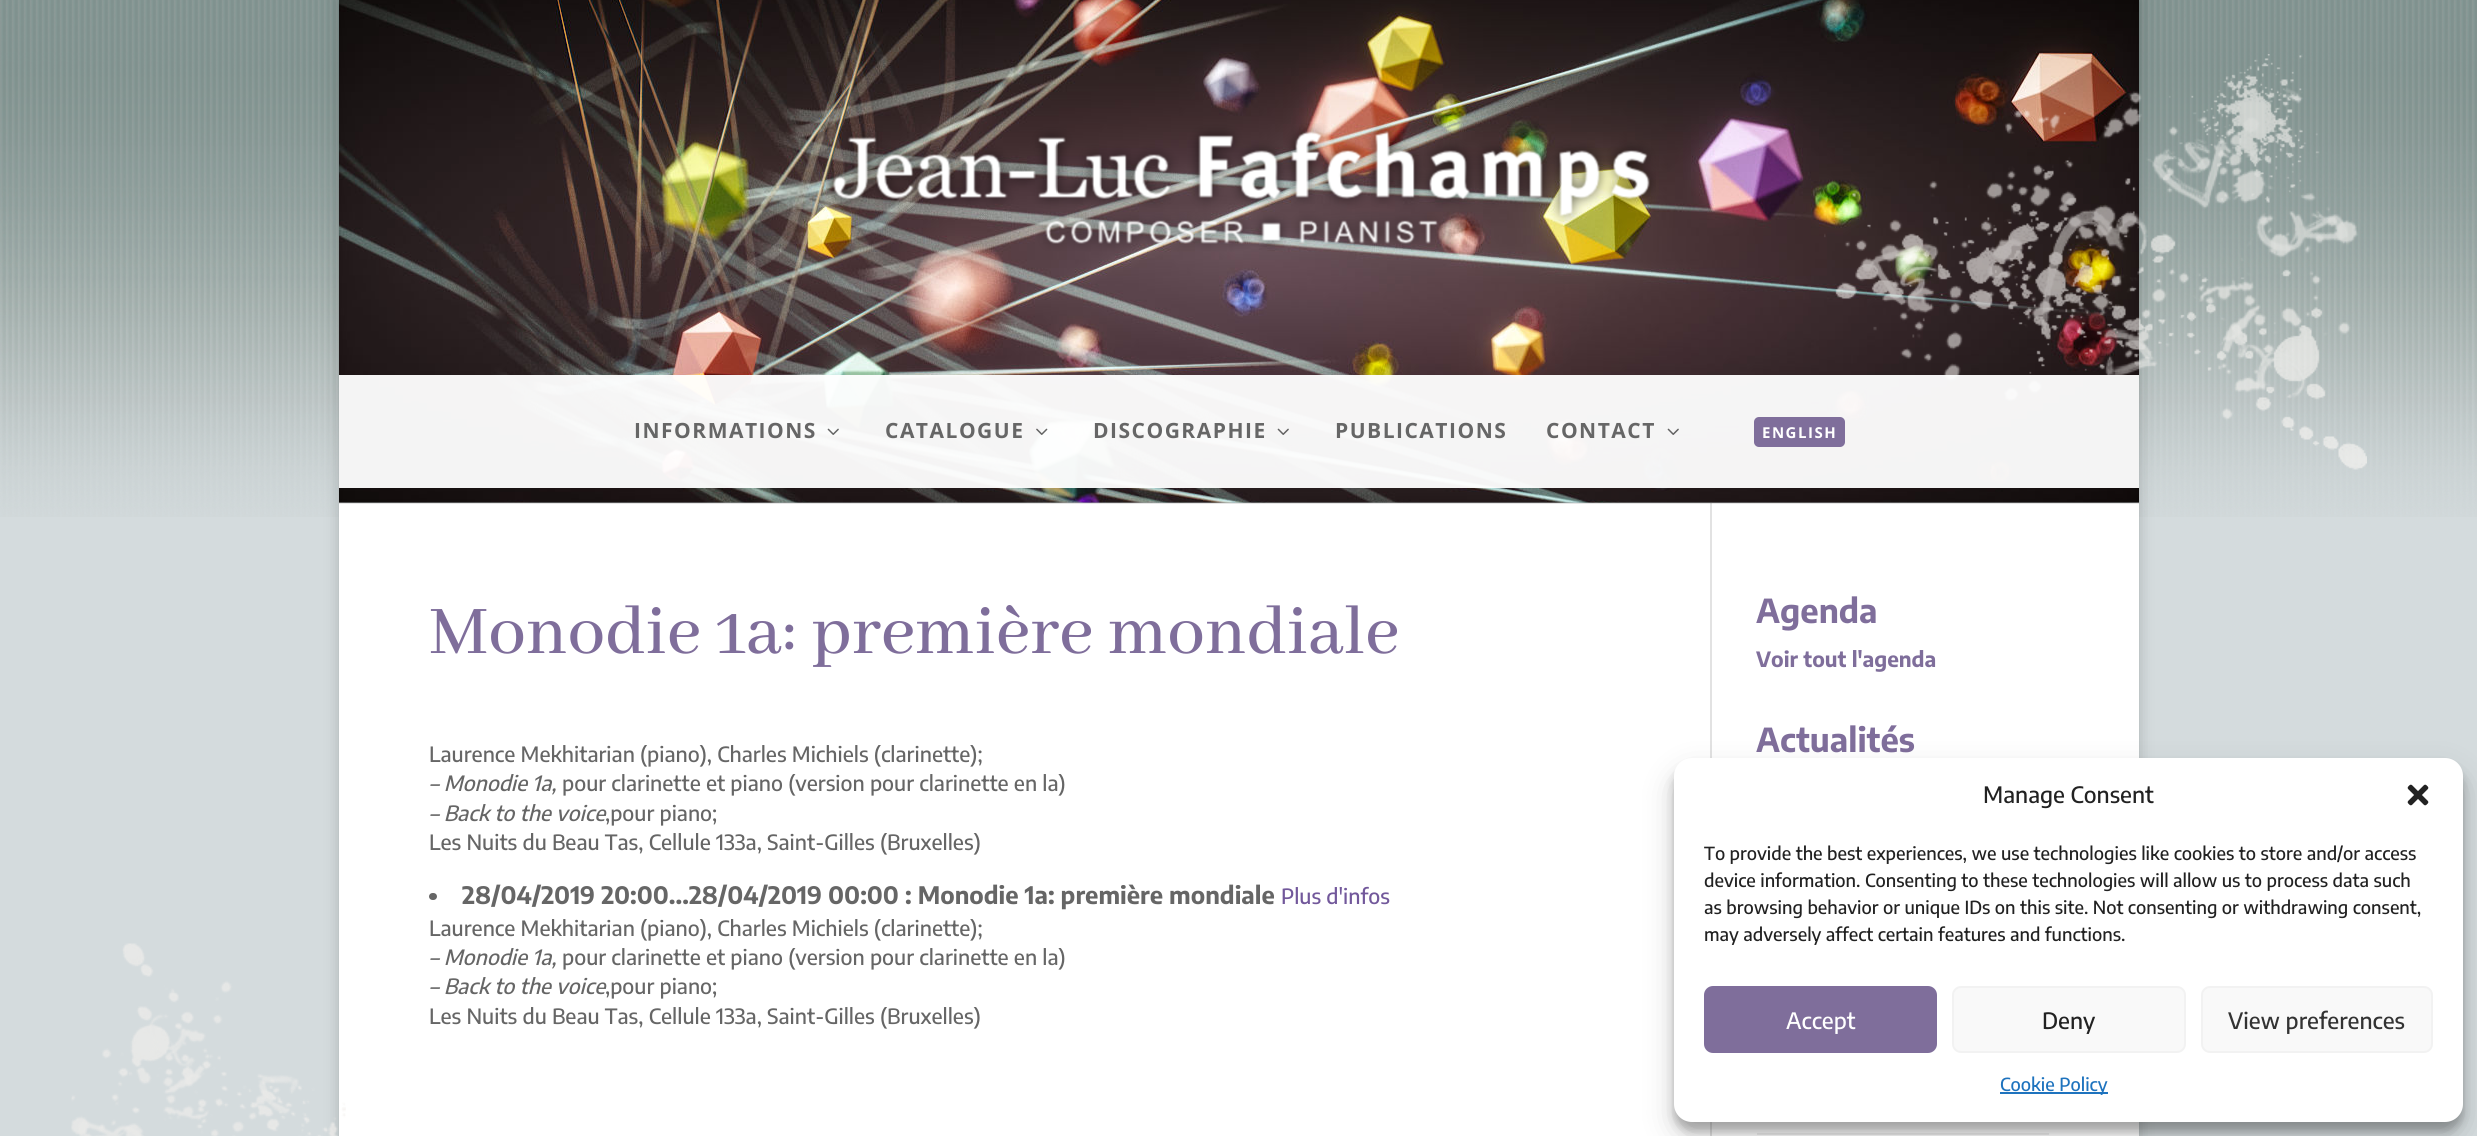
import math
import cairo

surface = cairo.ImageSurface(cairo.FORMAT_RGB24, 2477, 1136)
ctx = cairo.Context(surface)
options = cairo.FontOptions()
options.set_hint_metrics(cairo.HINT_METRICS_OFF)
options.set_hint_style(cairo.HINT_STYLE_NONE)
ctx.set_font_options(options)
ctx.set_miter_limit(4)


def set_color(code):
    ctx.set_source_rgb(*(v / 255 for v in bytes.fromhex(code[-6:])))


def draw_text(x, y, s, family, size, color, bold=False, italic=False):
    ctx.select_font_face(family, cairo.FONT_SLANT_ITALIC if italic else cairo.FONT_SLANT_NORMAL, cairo.FONT_WEIGHT_BOLD if bold else cairo.FONT_WEIGHT_NORMAL)
    ctx.set_font_size(size)
    set_color(color)
    ctx.move_to(x, y)
    ctx.show_text(s)


def draw_spaced(x, y, s, letter, word):
    ctx.move_to(x, y)
    for ch in s:
        ctx.show_text(ch)
        ctx.rel_move_to(letter + word * (ch == ' '), 0)


def fill_rect(x, y, w, h, color):
    set_color(color)
    ctx.rectangle(x, y, w, h)
    ctx.fill()


def rounded_rect(x, y, w, h, r):
    ctx.new_sub_path()
    for i, (u, v) in enumerate([(x + w - r, y + h - r), (x + r, y + h - r), (x + r, y + r), (x + w - r, y + r)]):
        ctx.arc(u, v, r, i * math.pi / 2, (i + 1) * math.pi / 2)
    ctx.close_path()


def draw_shadow(x, y, w, h, r, blur, alpha):
    ctx.push_group_with_content(cairo.CONTENT_ALPHA)
    ctx.set_operator(cairo.OPERATOR_SOURCE)
    for i in range(15, -16, -2):
        e = blur * i / 6
        if min(w, h) + 2 * e > 0:
            ctx.set_source_rgba(0, 0, 0, alpha * math.erfc((i - 1) / 8.5) / 2)
            rounded_rect(x - e, y - e, w + 2 * e, h + 2 * e, max(0, min(r + e + blur * .6, min(w, h) / 2 + e)))
            ctx.fill()
    ctx.mask(ctx.pop_group())


def draw_image(path, x, y, w, h):
    ctx.save()
    ctx.set_source_surface(cairo.ImageSurface.create_from_png(path), x, y)
    ctx.rectangle(x, y, w, h)
    ctx.fill()
    ctx.restore()


set_color("#d4dbdd")
ctx.paint()
draw_image("assets/img1.png", 0, 0, 2477, 517)
set_color("#000000")
draw_shadow(339, 0, 1800, 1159, 0, 7.5, 0.2)
fill_rect(339, 503, 1800, 633, "#ffffff")
fill_rect(1710, 503, 2, 633, "#e2e2e2")
ctx.set_source_rgba(0, 0, 0, 0.1)
ctx.rectangle(339, 502, 1800, 2)
ctx.fill()
draw_image("assets/img2.png", 339, 0, 1800, 503)
draw_image("assets/img3.png", 825, 123, 831, 128)
draw_image("assets/img4.png", 1824, 54, 543, 416)
ctx.set_source_rgba(1, 1, 1, 0.95)
ctx.rectangle(339, 375, 1800, 113)
ctx.fill()
ctx.select_font_face("Open Sans", cairo.FONT_SLANT_NORMAL, cairo.FONT_WEIGHT_BOLD)
ctx.set_font_size(21)
set_color("#666666")
draw_spaced(634, 438, "INFORMATIONS", 1.5, 0)
draw_image("assets/img5.png", 827, 428, 12, 7)
draw_spaced(885, 438, "CATALOGUE", 1.5, 0)
draw_image("assets/img6.png", 1036, 428, 12, 7)
draw_spaced(1093, 438, "DISCOGRAPHIE", 1.5, 0)
draw_image("assets/img7.png", 1277, 428, 12, 7)
draw_spaced(1335, 438, "PUBLICATIONS", 1.5, 0)
draw_spaced(1546, 438, "CONTACT", 1.5, 0)
draw_image("assets/img8.png", 1667, 428, 12, 7)
set_color("#7f6e9b")
rounded_rect(1754, 417, 91, 30, 5)
ctx.fill()
ctx.set_font_size(15)
set_color("#ffffff")
draw_spaced(1762, 438, "ENGLISH", 1.5, 0)
draw_image("assets/img9.png", 71, 943, 275, 193)
draw_text(429, 653, "Monodie 1a: première mondiale", "Abhaya Libre Medium Medium", 75, "#7f6e9b")
draw_text(429, 762, "Laurence Mekhitarian (piano), Charles Michiels (clarinette);", "Encode Sans Medium", 21, "#666666")
draw_text(429, 791, "– Monodie 1a,", "Encode Sans Medium", 21, "#666666", italic=True)
draw_text(562, 791, "pour clarinette et piano (version pour clarinette en la)", "Encode Sans Medium", 21, "#666666")
draw_text(429, 821, "– Back to the voice", "Encode Sans Medium", 21, "#666666", italic=True)
draw_text(605, 821, ",pour piano;", "Encode Sans Medium", 21, "#666666")
draw_text(429, 850, "Les Nuits du Beau Tas, Cellule 133a, Saint-Gilles (Bruxelles)", "Encode Sans Medium", 21, "#666666")
rounded_rect(429, 893, 8, 7, 3.5)
ctx.fill()
draw_text(462, 904, "28/04/2019 20:00...28/04/2019 00:00 : Monodie 1a: première mondiale", "Encode Sans", 24, "#666666", bold=True)
draw_text(1281, 904, "Plus d'infos", "Encode Sans Medium", 21, "#72589b")
draw_text(429, 936, "Laurence Mekhitarian (piano), Charles Michiels (clarinette);", "Encode Sans Medium", 21, "#666666")
draw_text(429, 965, "– Monodie 1a,", "Encode Sans Medium", 21, "#666666", italic=True)
draw_text(562, 965, "pour clarinette et piano (version pour clarinette en la)", "Encode Sans Medium", 21, "#666666")
draw_text(429, 994, "– Back to the voice", "Encode Sans Medium", 21, "#666666", italic=True)
draw_text(605, 994, ",pour piano;", "Encode Sans Medium", 21, "#666666")
draw_text(429, 1024, "Les Nuits du Beau Tas, Cellule 133a, Saint-Gilles (Bruxelles)", "Encode Sans Medium", 21, "#666666")
draw_text(1756, 623, "Agenda", "Encode Sans", 33, "#7f6e9b", bold=True)
draw_text(1756, 667, "Voir tout l'agenda", "Encode Sans", 21, "#7f6e9b", bold=True)
draw_text(1756, 752, "Actualités", "Encode Sans", 33, "#7f6e9b", bold=True)
fill_rect(1757, 1133, 292, 2, "#eeeeee")
set_color("#000000")
draw_shadow(1674, 767, 789, 364, 18, 4.5, 0.23)
draw_shadow(1674, 773, 789, 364, 18, 15, 0.19)
set_color("#ffffff")
rounded_rect(1674, 758, 789, 364, 18)
ctx.fill()
draw_text(1983, 803, "Manage Consent", "Encode Sans Medium", 22.5, "#222222")
draw_image("assets/img10.png", 2407, 784, 22, 22)
draw_text(1704, 860, "To provide the best experiences, we use technologies like cookies to store and/or access", "Encode Sans Medium", 18, "#222222")
draw_text(1704, 887, "device information. Consenting to these technologies will allow us to process data such", "Encode Sans Medium", 18, "#222222")
draw_text(1704, 914, "as browsing behavior or unique IDs on this site. Not consenting or withdrawing consent,", "Encode Sans Medium", 18, "#222222")
draw_text(1704, 941, "may adversely affect certain features and functions.", "Encode Sans Medium", 18, "#222222")
set_color("#7f6e9b")
rounded_rect(1705, 987, 231, 65, 8)
ctx.fill_preserve()
ctx.stroke()
draw_text(1786, 1029, "Accept", "Encode Sans Medium", 22.5, "#ffffff")
set_color("#f9f9f9")
rounded_rect(1953, 987, 232, 65, 8)
ctx.fill_preserve()
set_color("#f2f2f2")
ctx.stroke()
draw_text(2042, 1029, "Deny", "Encode Sans Medium", 22.5, "#222222")
set_color("#f9f9f9")
rounded_rect(2202, 987, 230, 65, 8)
ctx.fill_preserve()
set_color("#f2f2f2")
ctx.stroke()
draw_text(2228, 1029, "View preferences", "Encode Sans Medium", 22.5, "#333333")
fill_rect(2000, 1092, 108, 2, "#1e73be")
draw_text(2000, 1091, "Cookie Policy", "Encode Sans Medium", 18, "#1e73be")
surface.write_to_png("output.png")
